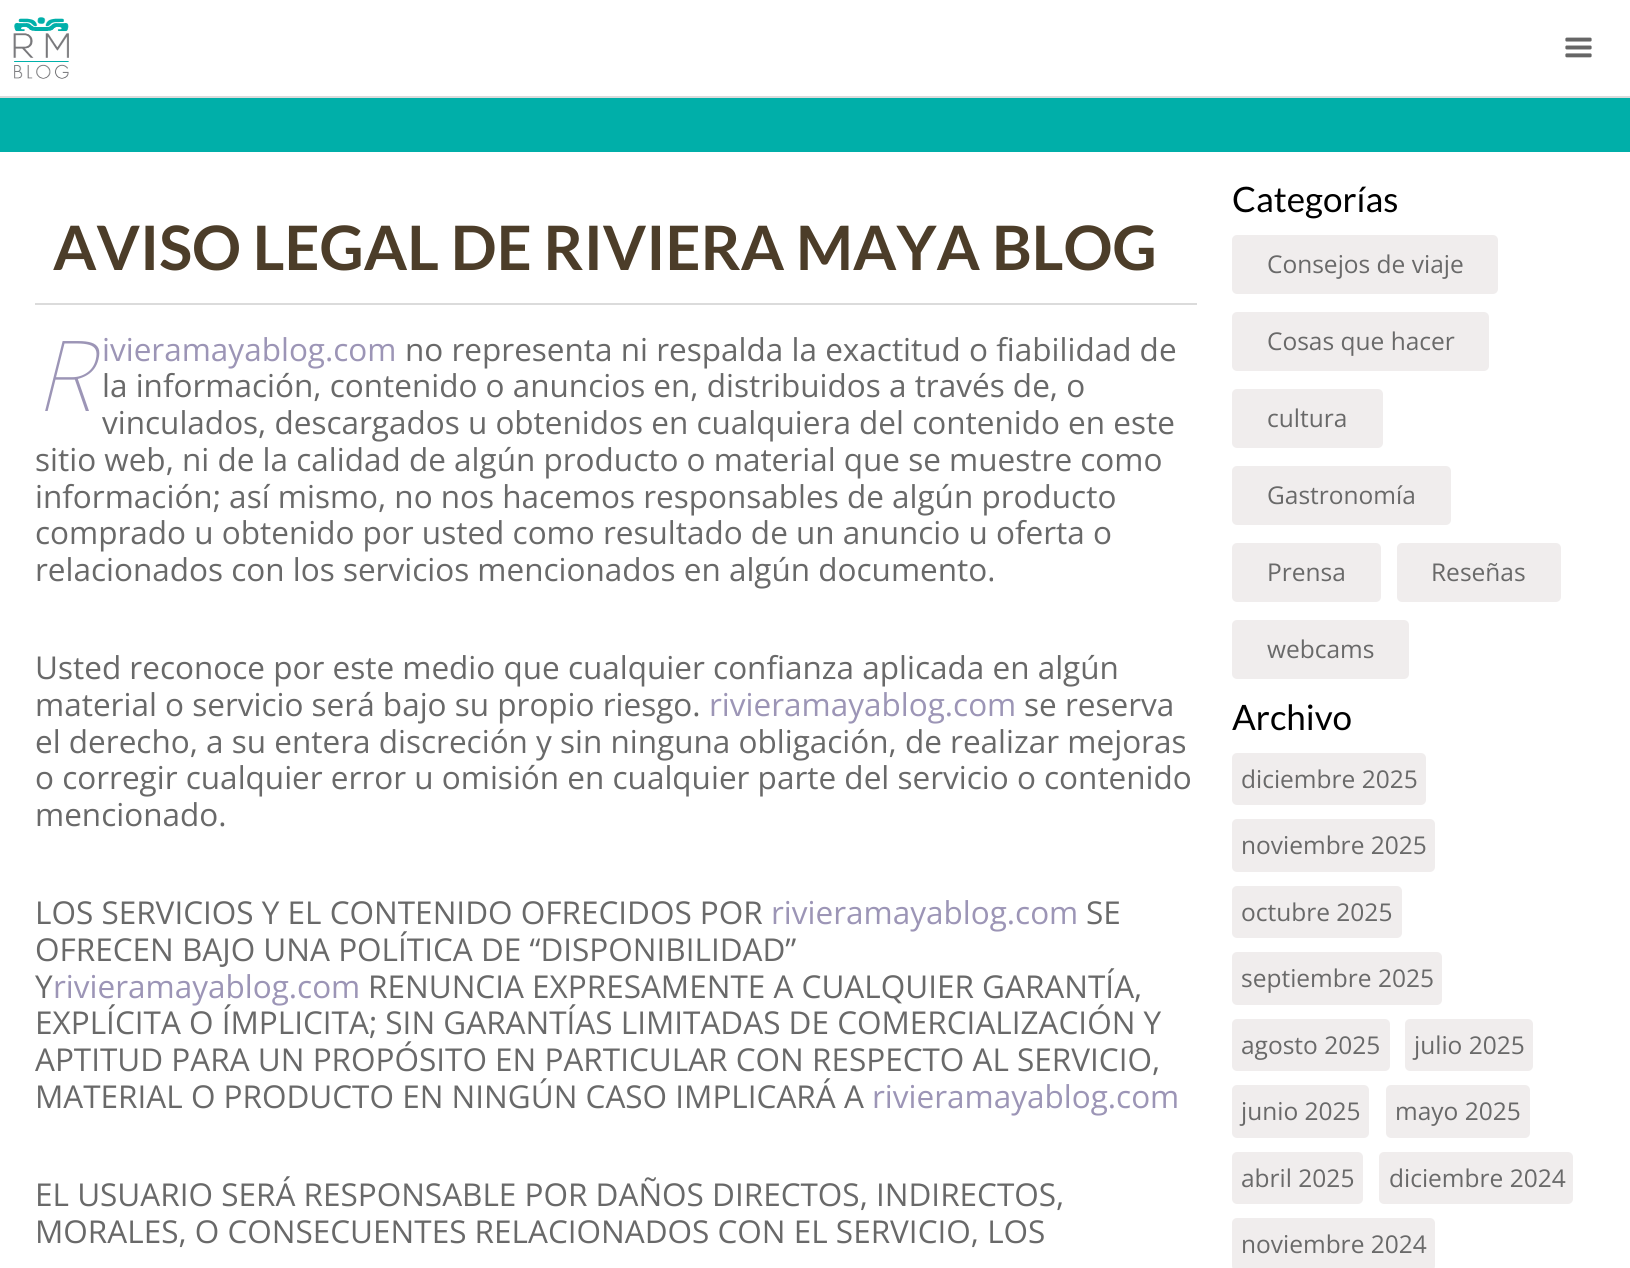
import math
import cairo

surface = cairo.ImageSurface(cairo.FORMAT_RGB24, 1630, 1268)
ctx = cairo.Context(surface)
options = cairo.FontOptions()
options.set_hint_metrics(cairo.HINT_METRICS_OFF)
options.set_hint_style(cairo.HINT_STYLE_NONE)
ctx.set_font_options(options)
ctx.set_miter_limit(4)


def set_color(code):
    ctx.set_source_rgb(*(v / 255 for v in bytes.fromhex(code[-6:])))


def draw_text(x, y, s, family, size, color, bold=False, italic=False):
    ctx.select_font_face(family, cairo.FONT_SLANT_ITALIC if italic else cairo.FONT_SLANT_NORMAL, cairo.FONT_WEIGHT_BOLD if bold else cairo.FONT_WEIGHT_NORMAL)
    ctx.set_font_size(size)
    set_color(color)
    ctx.move_to(x, y)
    ctx.show_text(s)


def fill_rect(x, y, w, h, color):
    set_color(color)
    ctx.rectangle(x, y, w, h)
    ctx.fill()


def rounded_rect(x, y, w, h, r):
    ctx.new_sub_path()
    for i, (u, v) in enumerate([(x + w - r, y + h - r), (x + r, y + h - r), (x + r, y + r), (x + w - r, y + r)]):
        ctx.arc(u, v, r, i * math.pi / 2, (i + 1) * math.pi / 2)
    ctx.close_path()


def draw_image(path, x, y, w, h):
    ctx.save()
    ctx.set_source_surface(cairo.ImageSurface.create_from_png(path), x, y)
    ctx.rectangle(x, y, w, h)
    ctx.fill()
    ctx.restore()


set_color("#ffffff")
ctx.paint()
fill_rect(0, 96, 1630, 2, "#dbdbdb")
draw_image("assets/img1.png", 13, 17, 56, 62)
draw_image("assets/img2.png", 1565, 37, 27, 21)
fill_rect(0, 98, 1630, 54, "#00afa9")
fill_rect(35, 303, 1162, 2, "#dbdbdb")
draw_text(53, 270, "AVISO LEGAL DE RIVIERA MAYA BLOG", "Lato", 61.25, "#4c3d29", bold=True)
draw_text(35, 411, "R", "Noto Sans Thin", 98, "#9c95b6", italic=True)
draw_text(102, 361, "ivieramayablog.com", "Open Sans", 31.5, "#9c95b6")
draw_text(405, 361, "no representa ni respalda la exactitud o fiabilidad de", "Open Sans", 31.5, "#696969")
draw_text(102, 397, "la información, contenido o anuncios en, distribuidos a través de, o", "Open Sans", 31.5, "#696969")
draw_text(102, 434, "vinculados, descargados u obtenidos en cualquiera del contenido en este", "Open Sans", 31.5, "#696969")
draw_text(35, 471, "sitio web, ni de la calidad de algún producto o material que se muestre como", "Open Sans", 31.5, "#696969")
draw_text(35, 508, "información; así mismo, no nos hacemos responsables de algún producto", "Open Sans", 31.5, "#696969")
draw_text(35, 544, "comprado u obtenido por usted como resultado de un anuncio u oferta o", "Open Sans", 31.5, "#696969")
draw_text(35, 581, "relacionados con los servicios mencionados en algún documento.", "Open Sans", 31.5, "#696969")
draw_text(35, 679, "Usted reconoce por este medio que cualquier confianza aplicada en algún", "Open Sans", 31.5, "#696969")
draw_text(35, 716, "material o servicio será bajo su propio riesgo.", "Open Sans", 31.5, "#696969")
draw_text(709, 716, "rivieramayablog.com", "Open Sans", 31.5, "#9c95b6")
draw_text(1024, 716, "se reserva", "Open Sans", 31.5, "#696969")
draw_text(35, 753, "el derecho, a su entera discreción y sin ninguna obligación, de realizar mejoras", "Open Sans", 31.5, "#696969")
draw_text(35, 789, "o corregir cualquier error u omisión en cualquier parte del servicio o contenido", "Open Sans", 31.5, "#696969")
draw_text(35, 826, "mencionado.", "Open Sans", 31.5, "#696969")
draw_text(35, 924, "LOS SERVICIOS Y EL CONTENIDO OFRECIDOS POR", "Open Sans", 31.5, "#696969")
draw_text(771, 924, "rivieramayablog.com", "Open Sans", 31.5, "#9c95b6")
draw_text(1086, 924, "SE", "Open Sans", 31.5, "#696969")
draw_text(35, 961, "OFRECEN BAJO UNA POLÍTICA DE “DISPONIBILIDAD”", "Open Sans", 31.5, "#696969")
draw_text(35, 998, "Y", "Open Sans", 31.5, "#696969")
draw_text(53, 998, "rivieramayablog.com", "Open Sans", 31.5, "#9c95b6")
draw_text(368, 998, "RENUNCIA EXPRESAMENTE A CUALQUIER GARANTÍA,", "Open Sans", 31.5, "#696969")
draw_text(35, 1034, "EXPLÍCITA O ÍMPLICITA; SIN GARANTÍAS LIMITADAS DE COMERCIALIZACIÓN Y", "Open Sans", 31.5, "#696969")
draw_text(35, 1071, "APTITUD PARA UN PROPÓSITO EN PARTICULAR CON RESPECTO AL SERVICIO,", "Open Sans", 31.5, "#696969")
draw_text(35, 1108, "MATERIAL O PRODUCTO EN NINGÚN CASO IMPLICARÁ A", "Open Sans", 31.5, "#696969")
draw_text(872, 1108, "rivieramayablog.com", "Open Sans", 31.5, "#9c95b6")
draw_text(35, 1206, "EL USUARIO SERÁ RESPONSABLE POR DAÑOS DIRECTOS, INDIRECTOS,", "Open Sans", 31.5, "#696969")
draw_text(35, 1243, "MORALES, O CONSECUENTES RELACIONADOS CON EL SERVICIO, LOS", "Open Sans", 31.5, "#696969")
draw_text(1232, 212, "Categorías", "Lato", 35, "#000000")
set_color("#f0eded")
rounded_rect(1232, 235, 266, 59, 5)
ctx.fill()
draw_text(1267, 273, "Consejos de viaje", "Open Sans", 24.5, "#696969")
set_color("#f0eded")
rounded_rect(1232, 312, 257, 59, 5)
ctx.fill()
draw_text(1267, 350, "Cosas que hacer", "Open Sans", 24.5, "#696969")
set_color("#f0eded")
rounded_rect(1232, 389, 151, 59, 5)
ctx.fill()
draw_text(1267, 427, "cultura", "Open Sans", 24.5, "#696969")
set_color("#f0eded")
rounded_rect(1232, 466, 219, 59, 5)
ctx.fill()
draw_text(1267, 504, "Gastronomía", "Open Sans", 24.5, "#696969")
set_color("#f0eded")
rounded_rect(1232, 543, 149, 59, 5)
ctx.fill()
draw_text(1267, 581, "Prensa", "Open Sans", 24.5, "#696969")
set_color("#f0eded")
rounded_rect(1397, 543, 164, 59, 5)
ctx.fill()
draw_text(1431, 581, "Reseñas", "Open Sans", 24.5, "#696969")
set_color("#f0eded")
rounded_rect(1232, 620, 177, 59, 5)
ctx.fill()
draw_text(1267, 658, "webcams", "Open Sans", 24.5, "#696969")
draw_text(1232, 730, "Archivo", "Lato", 35, "#000000")
set_color("#f0eded")
rounded_rect(1232, 753, 194, 52, 5)
ctx.fill()
draw_text(1241, 788, "diciembre 2025", "Open Sans", 24.5, "#696969")
set_color("#f0eded")
rounded_rect(1232, 819, 203, 53, 5)
ctx.fill()
draw_text(1241, 854, "noviembre 2025", "Open Sans", 24.5, "#696969")
set_color("#f0eded")
rounded_rect(1232, 886, 170, 52, 5)
ctx.fill()
draw_text(1241, 921, "octubre 2025", "Open Sans", 24.5, "#696969")
set_color("#f0eded")
rounded_rect(1232, 952, 210, 53, 5)
ctx.fill()
draw_text(1241, 987, "septiembre 2025", "Open Sans", 24.5, "#696969")
set_color("#f0eded")
rounded_rect(1232, 1019, 158, 52, 5)
ctx.fill()
draw_text(1241, 1054, "agosto 2025", "Open Sans", 24.5, "#696969")
set_color("#f0eded")
rounded_rect(1405, 1019, 128, 52, 5)
ctx.fill()
draw_text(1414, 1054, "julio 2025", "Open Sans", 24.5, "#696969")
set_color("#f0eded")
rounded_rect(1232, 1085, 137, 53, 5)
ctx.fill()
draw_text(1241, 1120, "junio 2025", "Open Sans", 24.5, "#696969")
set_color("#f0eded")
rounded_rect(1386, 1085, 144, 53, 5)
ctx.fill()
draw_text(1395, 1120, "mayo 2025", "Open Sans", 24.5, "#696969")
set_color("#f0eded")
rounded_rect(1232, 1152, 131, 52, 5)
ctx.fill()
draw_text(1241, 1187, "abril 2025", "Open Sans", 24.5, "#696969")
set_color("#f0eded")
rounded_rect(1379, 1152, 194, 52, 5)
ctx.fill()
draw_text(1389, 1187, "diciembre 2024", "Open Sans", 24.5, "#696969")
set_color("#f0eded")
rounded_rect(1232, 1218, 203, 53, 5)
ctx.fill()
draw_text(1241, 1253, "noviembre 2024", "Open Sans", 24.5, "#696969")
surface.write_to_png("output.png")
